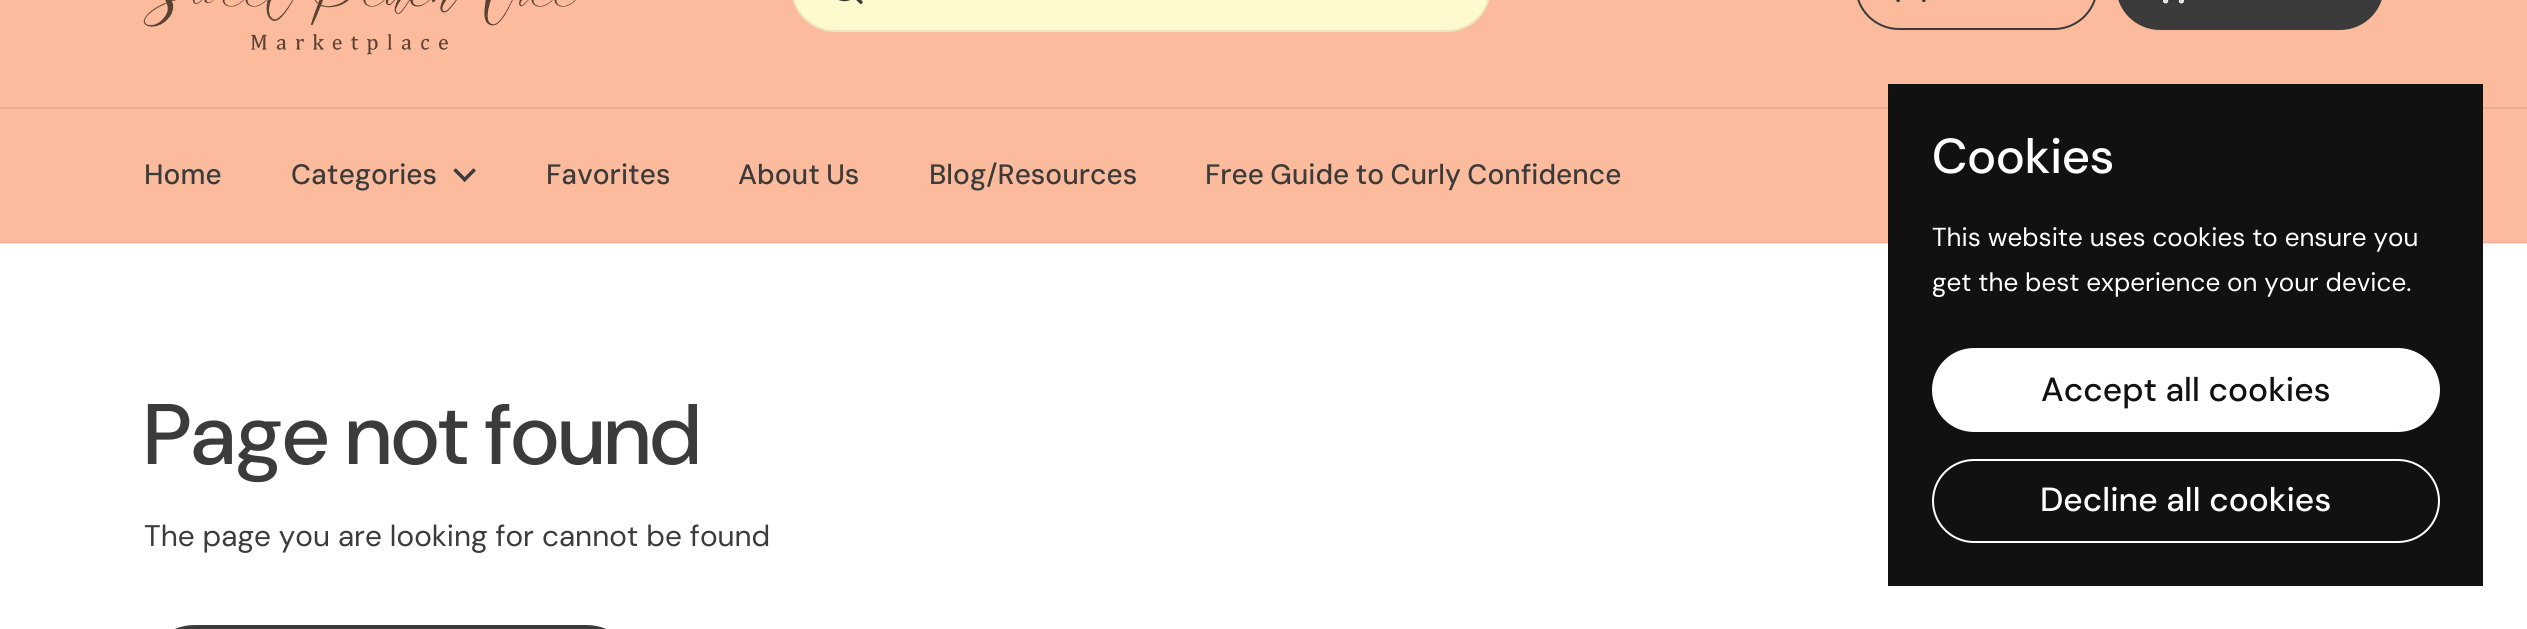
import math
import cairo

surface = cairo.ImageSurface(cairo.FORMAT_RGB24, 2527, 629)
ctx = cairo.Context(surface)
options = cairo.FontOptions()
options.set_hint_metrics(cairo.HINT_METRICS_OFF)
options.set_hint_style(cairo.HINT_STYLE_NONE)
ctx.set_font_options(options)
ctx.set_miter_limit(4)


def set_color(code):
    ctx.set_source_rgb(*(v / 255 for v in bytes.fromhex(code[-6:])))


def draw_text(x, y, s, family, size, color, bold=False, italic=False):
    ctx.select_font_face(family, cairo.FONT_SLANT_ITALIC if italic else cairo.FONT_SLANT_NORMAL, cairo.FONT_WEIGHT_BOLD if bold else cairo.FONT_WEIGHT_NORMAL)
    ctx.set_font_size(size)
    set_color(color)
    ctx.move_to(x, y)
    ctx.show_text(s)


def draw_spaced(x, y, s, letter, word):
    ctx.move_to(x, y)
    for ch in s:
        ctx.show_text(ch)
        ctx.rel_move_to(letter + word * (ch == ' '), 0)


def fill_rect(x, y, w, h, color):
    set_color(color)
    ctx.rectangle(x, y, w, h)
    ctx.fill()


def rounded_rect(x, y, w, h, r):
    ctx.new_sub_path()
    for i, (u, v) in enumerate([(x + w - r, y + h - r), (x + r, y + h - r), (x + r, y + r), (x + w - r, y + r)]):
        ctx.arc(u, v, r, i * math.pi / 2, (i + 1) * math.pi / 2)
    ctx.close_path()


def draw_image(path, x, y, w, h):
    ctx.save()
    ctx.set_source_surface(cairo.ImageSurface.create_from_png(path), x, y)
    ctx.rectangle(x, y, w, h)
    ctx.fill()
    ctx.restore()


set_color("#ffffff")
ctx.paint()
fill_rect(0, 243, 2527, 1, "#ebebeb")
fill_rect(0, 0, 2527, 242, "#fcbb9c")
fill_rect(0, 242, 2527, 1, "#e9ae92")
fill_rect(0, 107, 2527, 2, "#e9ae92")
draw_image("assets/img1.png", 143, 0, 433, 55)
set_color("#fffacd")
rounded_rect(791, -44, 700, 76, 44)
ctx.fill()
rounded_rect(792, -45, 698, 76, 43)
ctx.set_source_rgba(0.231, 0.231, 0.231, 0.1)
ctx.stroke()
draw_image("assets/img2.png", 838, 0, 25, 4)
rounded_rect(1856, -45, 241, 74, 43)
set_color("#3b3b3b")
ctx.stroke()
draw_image("assets/img3.png", 1896, 0, 30, 3)
rounded_rect(2117, -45, 266, 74, 43)
ctx.fill_preserve()
ctx.stroke()
draw_image("assets/img4.png", 2163, 0, 21, 4)
draw_text(144, 184, "Home", "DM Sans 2 Medium", 28, "#3b3b3b")
draw_text(291, 184, "Categories", "DM Sans 2 Medium", 28, "#3b3b3b")
draw_image("assets/img5.png", 453, 168, 23, 14)
draw_text(546, 184, "Favorites", "DM Sans 2 Medium", 28, "#3b3b3b")
draw_spaced(738, 184, "About Us", 0, -1)
draw_text(929, 184, "Blog/Resources", "DM Sans 2 Medium", 28, "#3b3b3b")
draw_spaced(1205, 184, "Free Guide to Curly Confidence", 0, -1)
fill_rect(1888, 84, 595, 502, "#111111")
draw_text(1932, 173, "Cookies", "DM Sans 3 Medium", 49, "#ffffff")
draw_text(1932, 246, "This website uses cookies to ensure you", "DM Sans 2", 26, "#ffffff")
draw_text(1932, 291, "get the best experience on your device.", "DM Sans 2", 26, "#ffffff")
rounded_rect(1933, 349, 506, 82, 41)
ctx.fill_preserve()
ctx.stroke()
draw_text(2041, 401, "Accept all cookies", "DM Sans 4 Medium", 33.5, "#111111")
rounded_rect(1933, 460, 506, 82, 41)
set_color("#ffffff")
ctx.stroke()
draw_text(2040, 511, "Decline all cookies", "DM Sans 4 Medium", 33.5, "#ffffff")
draw_text(144, 464, "Page not found", "DM Sans Medium", 85.75, "#3b3b3b")
draw_text(144, 546, "The page you are looking for cannot be found", "DM Sans", 29.75, "#3b3b3b")
rounded_rect(145, 626, 491, 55, 49.5)
ctx.fill_preserve()
ctx.stroke()
surface.write_to_png("output.png")
